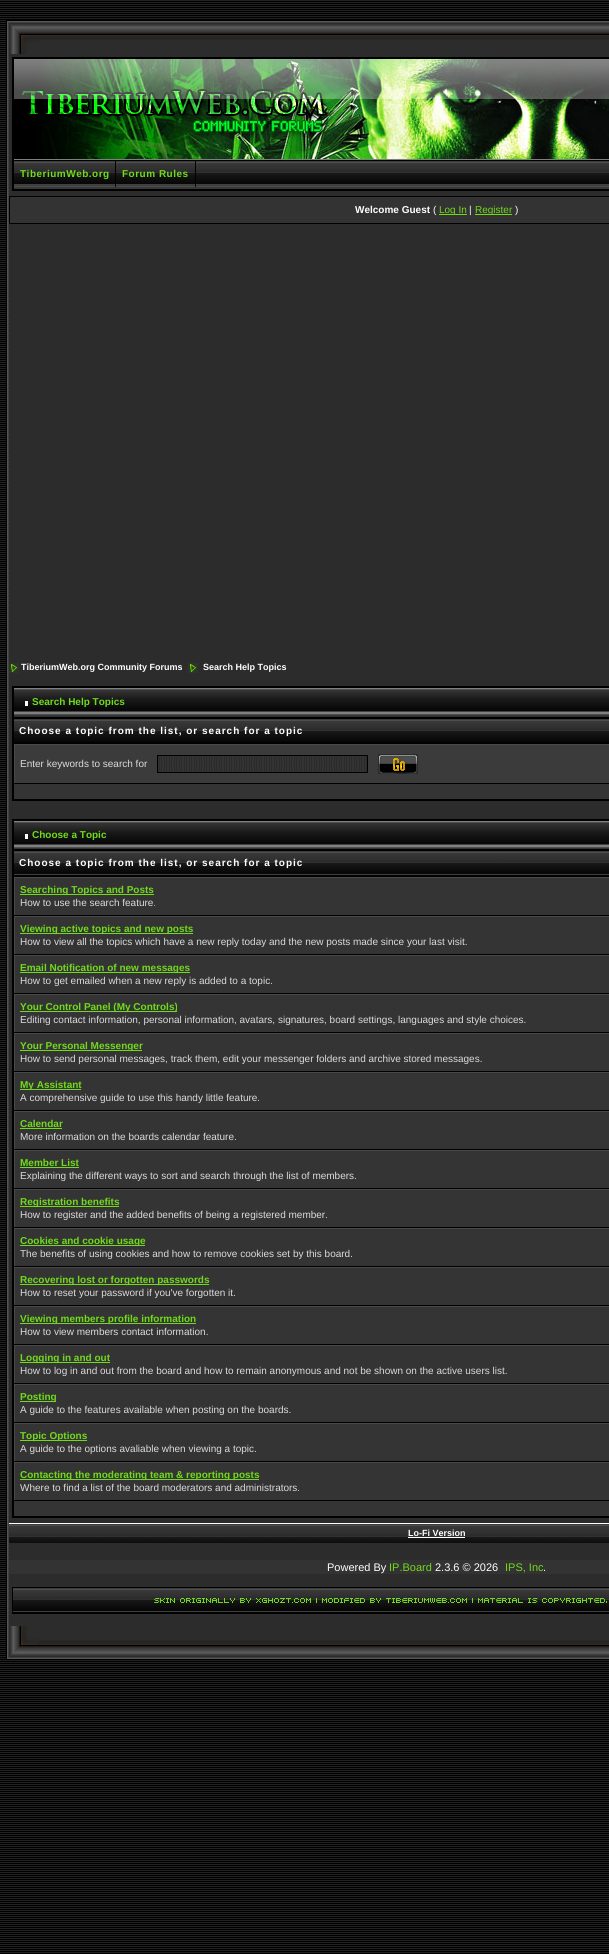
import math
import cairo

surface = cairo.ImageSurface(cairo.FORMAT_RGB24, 609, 1954)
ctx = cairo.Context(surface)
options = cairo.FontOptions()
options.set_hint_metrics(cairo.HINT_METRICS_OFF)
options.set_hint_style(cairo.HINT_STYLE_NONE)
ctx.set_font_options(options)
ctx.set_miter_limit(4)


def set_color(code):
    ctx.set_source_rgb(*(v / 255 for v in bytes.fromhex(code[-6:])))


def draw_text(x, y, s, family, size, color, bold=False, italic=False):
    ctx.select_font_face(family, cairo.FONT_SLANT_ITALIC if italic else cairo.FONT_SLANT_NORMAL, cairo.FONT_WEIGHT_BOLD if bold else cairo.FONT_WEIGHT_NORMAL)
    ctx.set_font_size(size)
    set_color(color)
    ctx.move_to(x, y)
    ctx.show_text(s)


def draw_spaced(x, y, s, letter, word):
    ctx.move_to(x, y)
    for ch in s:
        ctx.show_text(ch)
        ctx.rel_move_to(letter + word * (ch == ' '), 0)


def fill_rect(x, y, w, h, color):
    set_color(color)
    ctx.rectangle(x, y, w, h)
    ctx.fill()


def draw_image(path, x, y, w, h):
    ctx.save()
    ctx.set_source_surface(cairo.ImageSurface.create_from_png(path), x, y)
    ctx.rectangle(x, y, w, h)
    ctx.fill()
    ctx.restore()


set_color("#ffffff")
ctx.paint()
draw_image("assets/img1.png", 0, 0, 609, 1954)
fill_rect(40, 40, 569, 14, "#2c2c2c")
draw_image("assets/img2.png", 6, 20, 34, 34)
draw_image("assets/img3.png", 40, 20, 569, 20)
draw_image("assets/img4.png", 6, 54, 3, 1572)
fill_rect(9, 54, 600, 1572, "#2c2c2c")
fill_rect(12, 57, 597, 134, "#000000")
draw_image("assets/img5.png", 14, 59, 595, 101)
draw_image("assets/img6.png", 22, 59, 587, 100)
draw_image("assets/img7.png", 14, 161, 595, 28)
fill_rect(115, 161, 1, 26, "#000000")
ctx.select_font_face("Liberation Sans", cairo.FONT_SLANT_NORMAL, cairo.FONT_WEIGHT_BOLD)
ctx.set_font_size(10)
set_color("#71db1b")
draw_spaced(20, 177, "TiberiumWeb.org", 0.5, 0)
fill_rect(195, 161, 1, 26, "#000000")
set_color("#71db1b")
draw_spaced(122, 177, "Forum Rules", 0.5, 0)
set_color("#333333")
ctx.rectangle(9.5, 196.5, 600, 27)
ctx.fill_preserve()
set_color("#000000")
ctx.set_line_width(1)
ctx.stroke()
draw_text(355, 213, "Welcome Guest", "Liberation Sans", 10, "#ffffff", bold=True)
draw_text(433, 213, "(", "Liberation Sans", 10, "#ffffff")
fill_rect(439, 214, 28, 1, "#71db1b")
draw_text(439, 213, "Log In", "Liberation Sans", 10, "#71db1b")
draw_text(469, 213, "|", "Liberation Sans", 10, "#ffffff")
fill_rect(475, 214, 37, 1, "#71db1b")
draw_text(475, 213, "Register", "Liberation Sans", 10, "#71db1b")
draw_text(515, 213, ")", "Liberation Sans", 10, "#ffffff")
draw_image("assets/img8.png", 9, 663, 10, 10)
draw_text(21, 670, "TiberiumWeb.org Community Forums", "Liberation Sans", 9, "#ffffff", bold=True)
draw_image("assets/img8.png", 188, 663, 10, 10)
draw_text(203, 670, "Search Help Topics", "Liberation Sans", 9, "#ffffff", bold=True)
fill_rect(12, 686, 597, 115, "#000000")
draw_image("assets/img9.png", 14, 688, 595, 29)
fill_rect(25, 701, 3, 5, "#ffffff")
draw_text(32, 705, "Search Help Topics", "Liberation Sans", 10, "#71db1b", bold=True)
draw_image("assets/img10.png", 14, 719, 595, 23)
set_color("#ffffff")
draw_spaced(19, 734, "Choose a topic from the list, or search for a topic", 1, 0)
fill_rect(15, 745, 594, 38, "#3b3b3b")
fill_rect(14, 744, 595, 1, "#494949")
fill_rect(14, 744, 1, 39, "#494949")
draw_text(20, 767, "Enter keywords to search for", "Liberation Sans", 10, "#dbdbdb")
fill_rect(158, 756, 1, 16, "#333333")
draw_image("assets/img11.png", 159, 756, 208, 16)
ctx.rectangle(157.5, 755.5, 210, 17)
set_color("#000000")
ctx.stroke()
draw_image("assets/img12.png", 378, 754, 40, 20)
fill_rect(14, 784, 595, 15, "#343434")
fill_rect(12, 819, 597, 699, "#000000")
draw_image("assets/img13.png", 14, 821, 595, 28)
fill_rect(25, 834, 3, 5, "#ffffff")
draw_text(32, 838, "Choose a Topic", "Liberation Sans", 10, "#71db1b", bold=True)
draw_image("assets/img14.png", 14, 851, 595, 24)
set_color("#ffffff")
draw_spaced(19, 866, "Choose a topic from the list, or search for a topic", 1, 0)
fill_rect(15, 878, 594, 37, "#343434")
fill_rect(14, 877, 595, 1, "#494949")
fill_rect(14, 877, 1, 38, "#494949")
fill_rect(20, 894, 134, 1, "#71db1b")
draw_text(20, 893, "Searching Topics and Posts", "Liberation Sans", 10, "#71db1b", bold=True)
draw_text(20, 906, "How to use the search feature.", "Liberation Sans", 10, "#dbdbdb")
fill_rect(15, 917, 594, 37, "#343434")
fill_rect(14, 916, 595, 1, "#494949")
fill_rect(14, 916, 1, 38, "#494949")
fill_rect(20, 933, 173, 1, "#71db1b")
draw_text(20, 932, "Viewing active topics and new posts", "Liberation Sans", 10, "#71db1b", bold=True)
draw_text(20, 945, "How to view all the topics which have a new reply today and the new posts made since your last visit.", "Liberation Sans", 10, "#dbdbdb")
fill_rect(15, 956, 594, 37, "#343434")
fill_rect(14, 955, 595, 1, "#494949")
fill_rect(14, 955, 1, 38, "#494949")
fill_rect(20, 972, 170, 1, "#71db1b")
draw_text(20, 971, "Email Notification of new messages", "Liberation Sans", 10, "#71db1b", bold=True)
draw_text(20, 984, "How to get emailed when a new reply is added to a topic.", "Liberation Sans", 10, "#dbdbdb")
fill_rect(15, 995, 594, 37, "#343434")
fill_rect(14, 994, 595, 1, "#494949")
fill_rect(14, 994, 1, 38, "#494949")
fill_rect(20, 1011, 157, 1, "#71db1b")
draw_text(20, 1010, "Your Control Panel (My Controls)", "Liberation Sans", 10, "#71db1b", bold=True)
draw_text(20, 1023, "Editing contact information, personal information, avatars, signatures, board settings, languages and style choices.", "Liberation Sans", 10, "#dbdbdb")
fill_rect(15, 1034, 594, 37, "#343434")
fill_rect(14, 1033, 595, 1, "#494949")
fill_rect(14, 1033, 1, 38, "#494949")
fill_rect(20, 1050, 122, 1, "#71db1b")
draw_text(20, 1049, "Your Personal Messenger", "Liberation Sans", 10, "#71db1b", bold=True)
draw_text(20, 1062, "How to send personal messages, track them, edit your messenger folders and archive stored messages.", "Liberation Sans", 10, "#dbdbdb")
fill_rect(15, 1073, 594, 37, "#343434")
fill_rect(14, 1072, 595, 1, "#494949")
fill_rect(14, 1072, 1, 38, "#494949")
fill_rect(20, 1089, 61, 1, "#71db1b")
draw_text(20, 1088, "My Assistant", "Liberation Sans", 10, "#71db1b", bold=True)
draw_text(20, 1101, "A comprehensive guide to use this handy little feature.", "Liberation Sans", 10, "#dbdbdb")
fill_rect(15, 1112, 594, 37, "#343434")
fill_rect(14, 1111, 595, 1, "#494949")
fill_rect(14, 1111, 1, 38, "#494949")
draw_text(20, 1127, "Calendar", "Liberation Sans", 10, "#71db1b", bold=True)
fill_rect(20, 1128, 42, 1, "#71db1b")
draw_text(20, 1140, "More information on the boards calendar feature.", "Liberation Sans", 10, "#dbdbdb")
fill_rect(15, 1151, 594, 37, "#343434")
fill_rect(14, 1150, 595, 1, "#494949")
fill_rect(14, 1150, 1, 38, "#494949")
draw_text(20, 1166, "Member List", "Liberation Sans", 10, "#71db1b", bold=True)
fill_rect(20, 1167, 59, 1, "#71db1b")
draw_text(20, 1179, "Explaining the different ways to sort and search through the list of members.", "Liberation Sans", 10, "#dbdbdb")
fill_rect(15, 1190, 594, 37, "#343434")
fill_rect(14, 1189, 595, 1, "#494949")
fill_rect(14, 1189, 1, 38, "#494949")
fill_rect(20, 1206, 99, 1, "#71db1b")
draw_text(20, 1205, "Registration benefits", "Liberation Sans", 10, "#71db1b", bold=True)
draw_text(20, 1218, "How to register and the added benefits of being a registered member.", "Liberation Sans", 10, "#dbdbdb")
fill_rect(15, 1229, 594, 37, "#343434")
fill_rect(14, 1228, 595, 1, "#494949")
fill_rect(14, 1228, 1, 38, "#494949")
fill_rect(20, 1245, 125, 1, "#71db1b")
draw_text(20, 1244, "Cookies and cookie usage", "Liberation Sans", 10, "#71db1b", bold=True)
draw_text(20, 1257, "The benefits of using cookies and how to remove cookies set by this board.", "Liberation Sans", 10, "#dbdbdb")
fill_rect(15, 1268, 594, 37, "#343434")
fill_rect(14, 1267, 595, 1, "#494949")
fill_rect(14, 1267, 1, 38, "#494949")
fill_rect(20, 1284, 189, 1, "#71db1b")
draw_text(20, 1283, "Recovering lost or forgotten passwords", "Liberation Sans", 10, "#71db1b", bold=True)
draw_text(20, 1296, "How to reset your password if you've forgotten it.", "Liberation Sans", 10, "#dbdbdb")
fill_rect(15, 1307, 594, 37, "#343434")
fill_rect(14, 1306, 595, 1, "#494949")
fill_rect(14, 1306, 1, 38, "#494949")
fill_rect(20, 1323, 176, 1, "#71db1b")
draw_text(20, 1322, "Viewing members profile information", "Liberation Sans", 10, "#71db1b", bold=True)
draw_text(20, 1335, "How to view members contact information.", "Liberation Sans", 10, "#dbdbdb")
fill_rect(15, 1346, 594, 37, "#343434")
fill_rect(14, 1345, 595, 1, "#494949")
fill_rect(14, 1345, 1, 38, "#494949")
fill_rect(20, 1362, 90, 1, "#71db1b")
draw_text(20, 1361, "Logging in and out", "Liberation Sans", 10, "#71db1b", bold=True)
draw_text(20, 1374, "How to log in and out from the board and how to remain anonymous and not be shown on the active users list.", "Liberation Sans", 10, "#dbdbdb")
fill_rect(15, 1385, 594, 37, "#343434")
fill_rect(14, 1384, 595, 1, "#494949")
fill_rect(14, 1384, 1, 38, "#494949")
fill_rect(20, 1401, 36, 1, "#71db1b")
draw_text(20, 1400, "Posting", "Liberation Sans", 10, "#71db1b", bold=True)
draw_text(20, 1413, "A guide to the features available when posting on the boards.", "Liberation Sans", 10, "#dbdbdb")
fill_rect(15, 1424, 594, 37, "#343434")
fill_rect(14, 1423, 595, 1, "#494949")
fill_rect(14, 1423, 1, 38, "#494949")
fill_rect(20, 1440, 67, 1, "#71db1b")
draw_text(20, 1439, "Topic Options", "Liberation Sans", 10, "#71db1b", bold=True)
draw_text(20, 1452, "A guide to the options avaliable when viewing a topic.", "Liberation Sans", 10, "#dbdbdb")
fill_rect(15, 1463, 594, 37, "#343434")
fill_rect(14, 1462, 595, 1, "#494949")
fill_rect(14, 1462, 1, 38, "#494949")
fill_rect(20, 1479, 239, 1, "#71db1b")
draw_text(20, 1478, "Contacting the moderating team & reporting posts", "Liberation Sans", 10, "#71db1b", bold=True)
draw_text(20, 1491, "Where to find a list of the board moderators and administrators.", "Liberation Sans", 10, "#dbdbdb")
fill_rect(14, 1501, 595, 15, "#343434")
draw_image("assets/img15.png", 9, 1523, 385, 20)
draw_image("assets/img16.png", 394, 1523, 85, 20)
draw_text(408, 1536, "Lo-Fi Version", "Liberation Sans", 9, "#ffffff", bold=True)
fill_rect(408, 1537, 57, 1, "#ffffff")
draw_image("assets/img17.png", 479, 1523, 130, 20)
fill_rect(9, 1560, 600, 14, "#333333")
draw_text(327, 1571, "Powered By", "Liberation Sans", 11, "#ffffff")
draw_text(389, 1571, "IP.Board", "Liberation Sans", 11, "#71db1b")
draw_text(435, 1571, "2.3.6 © 2026", "Liberation Sans", 11, "#ffffff")
draw_text(505, 1571, "IPS, Inc", "Liberation Sans", 11, "#71db1b")
draw_text(543, 1571, ".", "Liberation Sans", 11, "#ffffff")
draw_image("assets/img18.png", 12, 1587, 597, 27)
fill_rect(40, 1626, 569, 14, "#2c2c2c")
draw_image("assets/img19.png", 6, 1626, 34, 34)
draw_image("assets/img20.png", 40, 1640, 569, 20)
surface.write_to_png("output.png")
